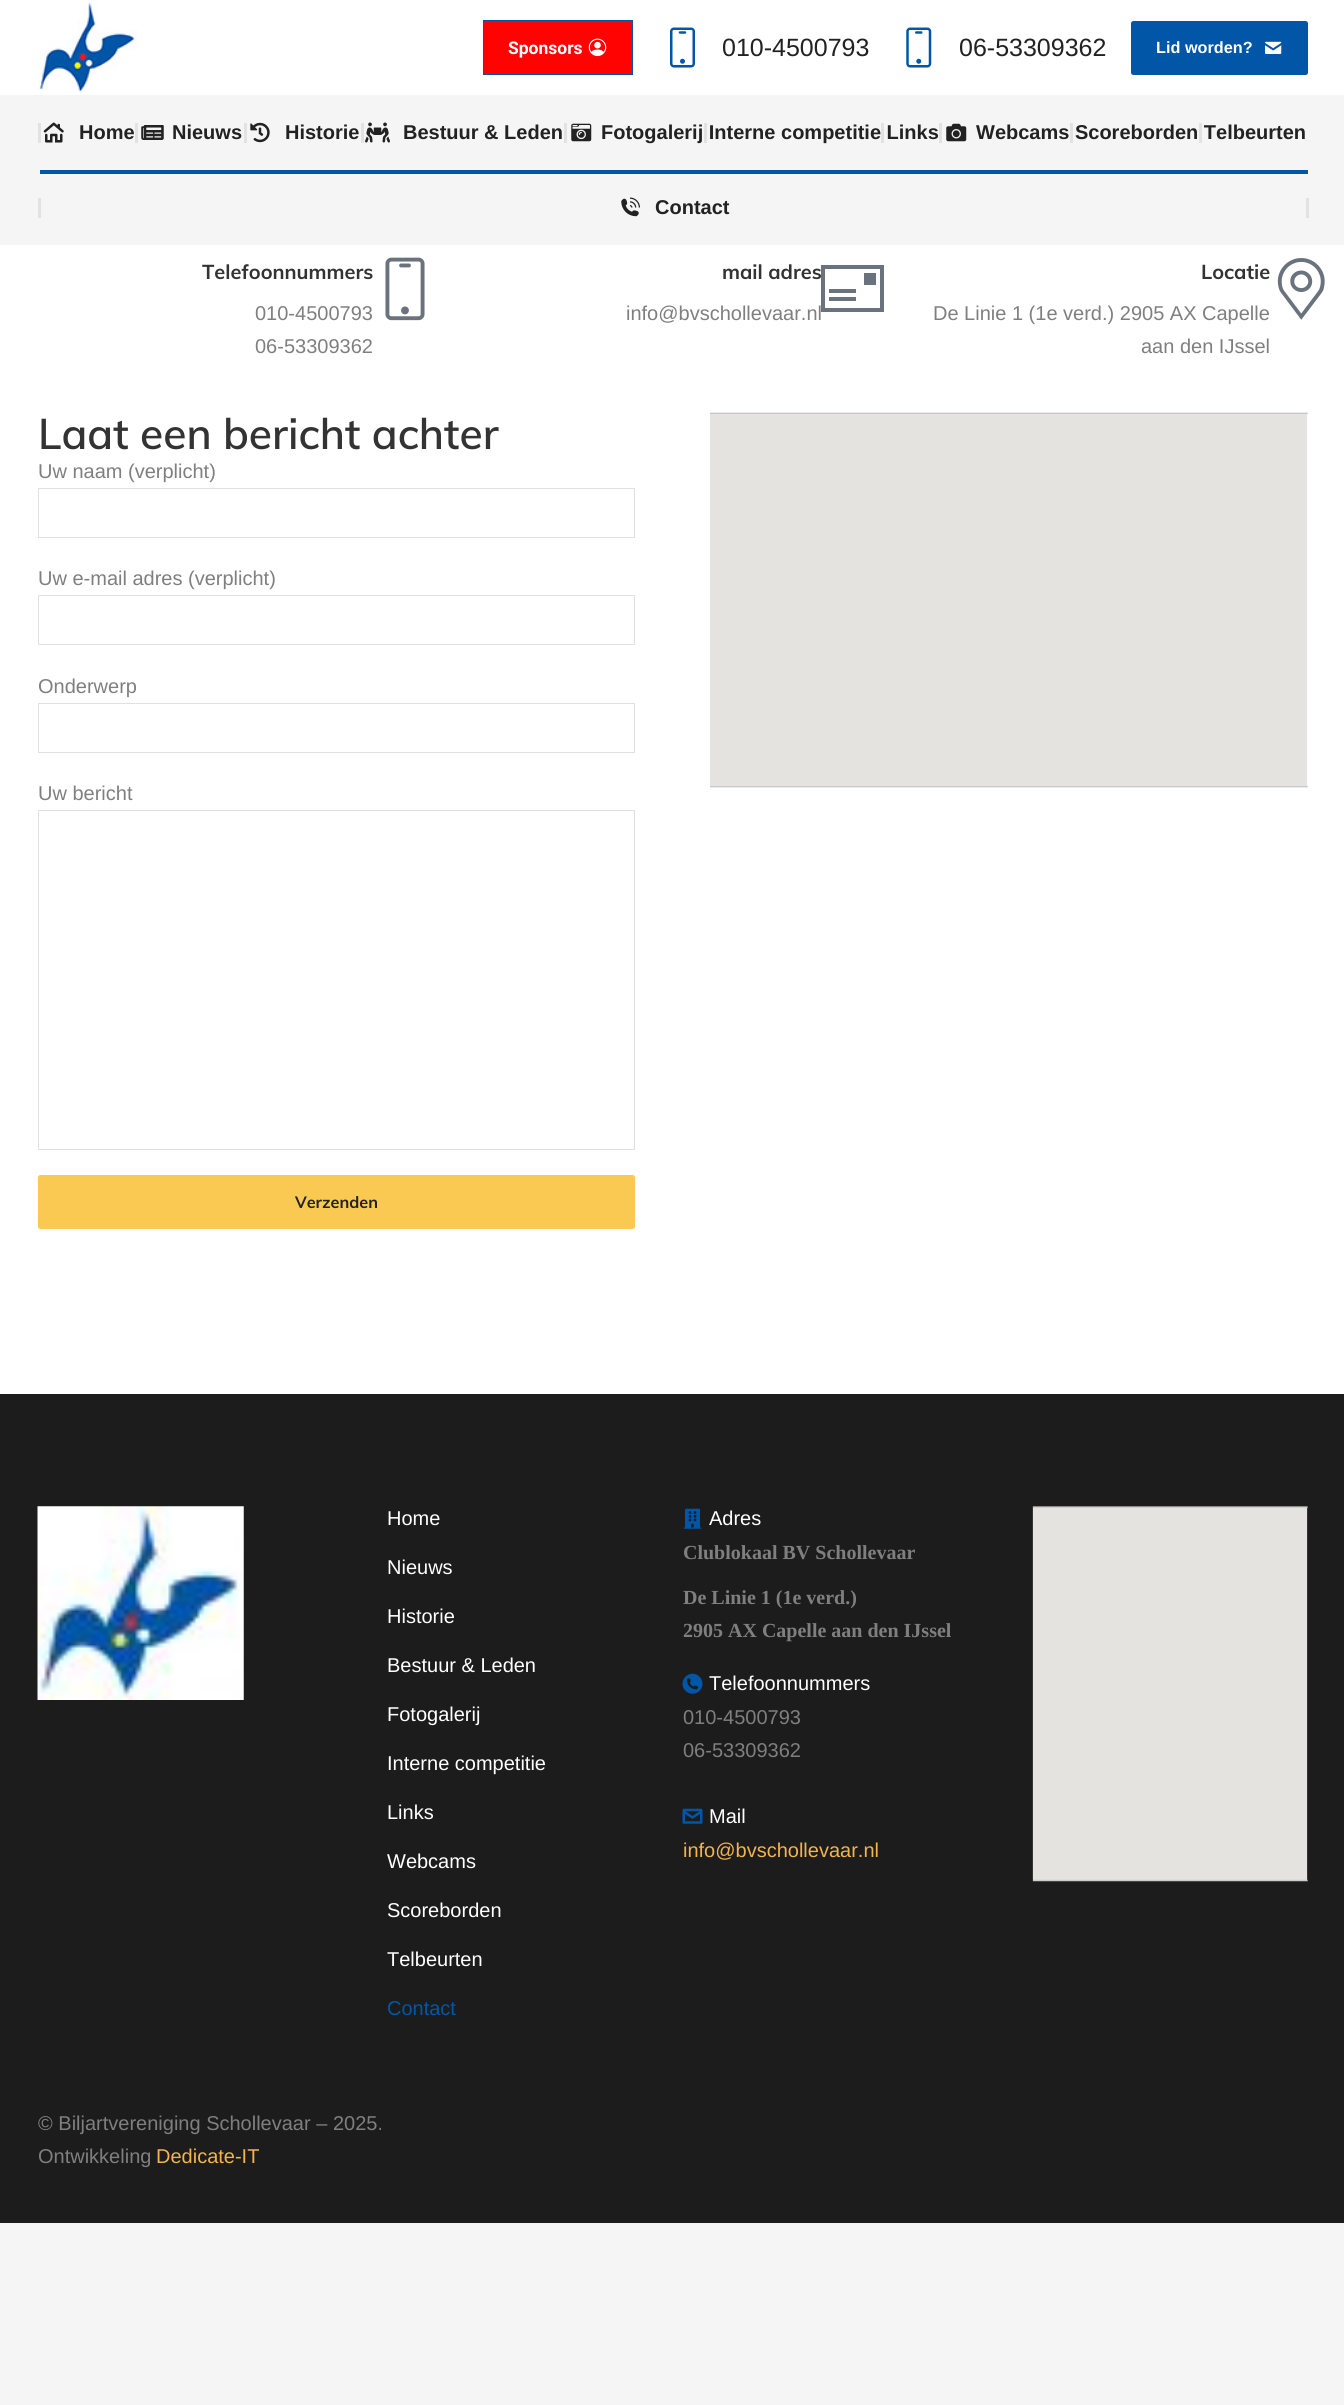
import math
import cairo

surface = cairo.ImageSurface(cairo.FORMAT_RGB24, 1344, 2405)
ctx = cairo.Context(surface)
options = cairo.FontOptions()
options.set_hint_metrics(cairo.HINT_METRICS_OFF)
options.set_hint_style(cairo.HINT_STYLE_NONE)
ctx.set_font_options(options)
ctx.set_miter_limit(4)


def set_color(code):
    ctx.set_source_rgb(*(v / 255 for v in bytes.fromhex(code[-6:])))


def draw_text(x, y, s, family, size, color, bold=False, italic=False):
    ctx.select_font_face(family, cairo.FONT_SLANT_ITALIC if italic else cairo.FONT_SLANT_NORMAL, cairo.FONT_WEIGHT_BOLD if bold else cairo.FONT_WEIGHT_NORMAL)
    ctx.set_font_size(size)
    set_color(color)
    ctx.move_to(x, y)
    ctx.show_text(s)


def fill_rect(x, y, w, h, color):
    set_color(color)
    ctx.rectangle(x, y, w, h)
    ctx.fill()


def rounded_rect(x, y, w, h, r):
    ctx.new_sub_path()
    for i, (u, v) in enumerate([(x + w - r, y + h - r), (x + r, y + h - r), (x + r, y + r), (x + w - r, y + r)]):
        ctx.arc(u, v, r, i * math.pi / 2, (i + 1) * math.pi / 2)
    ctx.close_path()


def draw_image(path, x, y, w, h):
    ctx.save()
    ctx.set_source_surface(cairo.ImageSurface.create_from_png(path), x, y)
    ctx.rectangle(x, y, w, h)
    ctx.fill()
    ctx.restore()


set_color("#f5f5f5")
ctx.paint()
fill_rect(0, 0, 1344, 1394, "#ffffff")
draw_image("assets/img1.png", 38, 0, 100, 95)
set_color("#ff0202")
ctx.rectangle(483.5, 20.5, 149, 54)
ctx.fill_preserve()
set_color("#0156a7")
ctx.set_line_width(1)
ctx.stroke()
draw_text(508, 54, "Sponsors", "Roboto", 17.5, "#ffffff", bold=True)
draw_image("assets/img2.png", 588, 38, 19, 19)
draw_image("assets/img3.png", 670, 27, 25, 41)
draw_text(722, 56, "010-4500793", "Liberation Sans", 25, "#222222")
draw_image("assets/img4.png", 906, 27, 26, 41)
draw_text(959, 56, "06-53309362", "Liberation Sans", 25, "#222222")
set_color("#0156a7")
rounded_rect(1131, 21, 177, 54, 2.5)
ctx.fill()
draw_text(1156, 53, "Lid worden?", "Liberation Sans", 16.25, "#ffffff", bold=True)
draw_image("assets/img5.png", 1265, 41, 17, 13)
fill_rect(0, 95, 1344, 150, "#f5f5f5")
fill_rect(135, 123, 3, 20, "#e2e2e2")
draw_image("assets/img6.png", 141, 125, 23, 15)
draw_text(172, 139, "Nieuws", "Liberation Sans", 20, "#222222", bold=True)
fill_rect(244, 123, 3, 20, "#e2e2e2")
draw_image("assets/img7.png", 250, 122, 20, 21)
draw_text(285, 139, "Historie", "Liberation Sans", 20, "#222222", bold=True)
fill_rect(361, 123, 3, 20, "#e2e2e2")
draw_image("assets/img8.png", 365, 122, 25, 21)
draw_text(403, 139, "Bestuur & Leden", "Liberation Sans", 20, "#222222", bold=True)
draw_text(601, 139, "Fotogalerij Interne competitie Links", "Liberation Sans", 20, "#222222", bold=True)
fill_rect(704, 123, 3, 20, "#e2e2e2")
fill_rect(881, 123, 3, 20, "#e2e2e2")
draw_text(976, 139, "Webcams Scoreborden Telbeurten", "Liberation Sans", 20, "#222222", bold=True)
fill_rect(1070, 123, 3, 20, "#e2e2e2")
fill_rect(1199, 123, 3, 20, "#e2e2e2")
fill_rect(38, 123, 3, 20, "#e2e2e2")
draw_image("assets/img9.png", 43, 122, 21, 21)
draw_text(79, 139, "Home", "Liberation Sans", 20, "#222222", bold=True)
fill_rect(564, 123, 3, 20, "#e2e2e2")
draw_image("assets/img10.png", 571, 123, 21, 19)
fill_rect(939, 123, 3, 20, "#e2e2e2")
draw_image("assets/img11.png", 946, 123, 21, 19)
fill_rect(38, 198, 3, 20, "#e2e2e2")
fill_rect(40, 170, 1268, 4, "#0156a7")
draw_image("assets/img12.png", 621, 197, 19, 20)
draw_text(655, 214, "Contact", "Liberation Sans", 20, "#222222", bold=True)
fill_rect(1306, 198, 3, 20, "#e2e2e2")
draw_text(202, 279, "Telefoonnummers", "Muli", 20, "#333333", bold=True)
draw_text(255, 320, "010-4500793", "Liberation Sans", 20, "#7f7f7f")
draw_text(255, 353, "06-53309362", "Liberation Sans", 20, "#7f7f7f")
draw_image("assets/img13.png", 385, 257, 40, 64)
draw_text(722, 279, "mail adres", "Muli", 20, "#333333", bold=True)
draw_text(626, 320, "info@bvschollevaar.nl", "Liberation Sans", 20, "#7f7f7f")
set_color("#69727d")
ctx.new_path()
ctx.move_to(821, 265)
ctx.line_to(821, 312)
ctx.line_to(884, 312)
ctx.line_to(884, 265)
ctx.close_path()
ctx.move_to(880, 308)
ctx.line_to(825, 308)
ctx.line_to(825, 269)
ctx.line_to(880, 269)
ctx.close_path()
ctx.move_to(864, 273)
ctx.line_to(876, 273)
ctx.line_to(876, 285)
ctx.line_to(864, 285)
ctx.close_path()
ctx.move_to(829, 289)
ctx.line_to(856, 289)
ctx.line_to(856, 293)
ctx.line_to(829, 293)
ctx.close_path()
ctx.move_to(829, 297)
ctx.line_to(856, 297)
ctx.line_to(856, 301)
ctx.line_to(829, 301)
ctx.close_path()
ctx.fill()
draw_text(1201, 279, "Locatie", "Muli", 20, "#333333", bold=True)
draw_text(933, 320, "De Linie 1 (1e verd.) 2905 AX Capelle", "Liberation Sans", 20, "#7f7f7f")
draw_text(1141, 353, "aan den IJssel", "Liberation Sans", 20, "#7f7f7f")
draw_image("assets/img14.png", 1277, 258, 48, 62)
draw_text(38, 449, "Laat een bericht achter", "Muli SemiBold", 42.5, "#333333")
draw_text(38, 478, "Uw naam (verplicht)", "Liberation Sans", 20, "#7f7f7f")
ctx.rectangle(38.5, 488.5, 596, 49)
set_color("#e0e0e0")
ctx.stroke()
draw_text(38, 585, "Uw e-mail adres (verplicht)", "Liberation Sans", 20, "#7f7f7f")
ctx.rectangle(38.5, 595.5, 596, 49)
set_color("#e0e0e0")
ctx.stroke()
draw_text(38, 693, "Onderwerp", "Liberation Sans", 20, "#7f7f7f")
ctx.rectangle(38.5, 703.5, 596, 49)
set_color("#e0e0e0")
ctx.stroke()
draw_text(38, 800, "Uw bericht", "Liberation Sans", 20, "#7f7f7f")
ctx.rectangle(38.5, 810.5, 596, 339)
set_color("#e0e0e0")
ctx.stroke()
set_color("#fac952")
rounded_rect(38, 1175, 597, 54, 2.5)
ctx.fill()
draw_text(295, 1208, "Verzenden", "Muli", 16.25, "#222222", bold=True)
draw_image("assets/img15.png", 710, 412, 598, 376)
fill_rect(0, 1394, 1344, 829, "#1c1c1c")
draw_image("assets/img16.png", 37, 1506, 207, 194)
draw_text(387, 1525, "Home", "Liberation Sans", 20, "#ffffff")
draw_text(387, 1574, "Nieuws", "Liberation Sans", 20, "#ffffff")
draw_text(387, 1623, "Historie", "Liberation Sans", 20, "#ffffff")
draw_text(387, 1672, "Bestuur & Leden", "Liberation Sans", 20, "#ffffff")
draw_text(387, 1721, "Fotogalerij", "Liberation Sans", 20, "#ffffff")
draw_text(387, 1770, "Interne competitie", "Liberation Sans", 20, "#ffffff")
draw_text(387, 1819, "Links", "Liberation Sans", 20, "#ffffff")
draw_text(387, 1868, "Webcams", "Liberation Sans", 20, "#ffffff")
draw_text(387, 1917, "Scoreborden", "Liberation Sans", 20, "#ffffff")
draw_text(387, 1966, "Telbeurten", "Liberation Sans", 20, "#ffffff")
draw_text(387, 2015, "Contact", "Liberation Sans", 20, "#0156a7")
draw_image("assets/img17.png", 683, 1508, 19, 21)
draw_text(709, 1525, "Adres", "Liberation Sans", 20, "#ffffff")
draw_text(683, 1559, "Clublokaal BV Schollevaar", "Liberation Serif", 20, "#7f7f7f", bold=True)
draw_text(683, 1604, "De Linie 1 (1e verd.)", "Liberation Serif", 20, "#7f7f7f", bold=True)
draw_text(683, 1637, "2905 AX Capelle aan den IJssel", "Liberation Serif", 20, "#7f7f7f", bold=True)
draw_image("assets/img18.png", 682, 1673, 21, 21)
draw_text(709, 1690, "Telefoonnummers", "Liberation Sans", 20, "#ffffff")
draw_text(683, 1724, "010-4500793", "Liberation Sans", 20, "#7f7f7f")
draw_text(683, 1757, "06-53309362", "Liberation Sans", 20, "#7f7f7f")
draw_image("assets/img19.png", 682, 1808, 21, 16)
draw_text(709, 1823, "Mail", "Liberation Sans", 20, "#ffffff")
draw_text(683, 1857, "info@bvschollevaar.nl", "Liberation Sans", 20, "#f4b34b")
draw_image("assets/img20.png", 1032, 1506, 276, 376)
draw_text(38, 2130, "© Biljartvereniging Schollevaar – 2025.", "Liberation Sans", 20, "#7f7f7f")
draw_text(38, 2163, "Ontwikkeling", "Liberation Sans", 20, "#7f7f7f")
draw_text(156, 2163, "Dedicate-IT", "Liberation Sans", 20, "#f4b34b")
surface.write_to_png("output.png")
